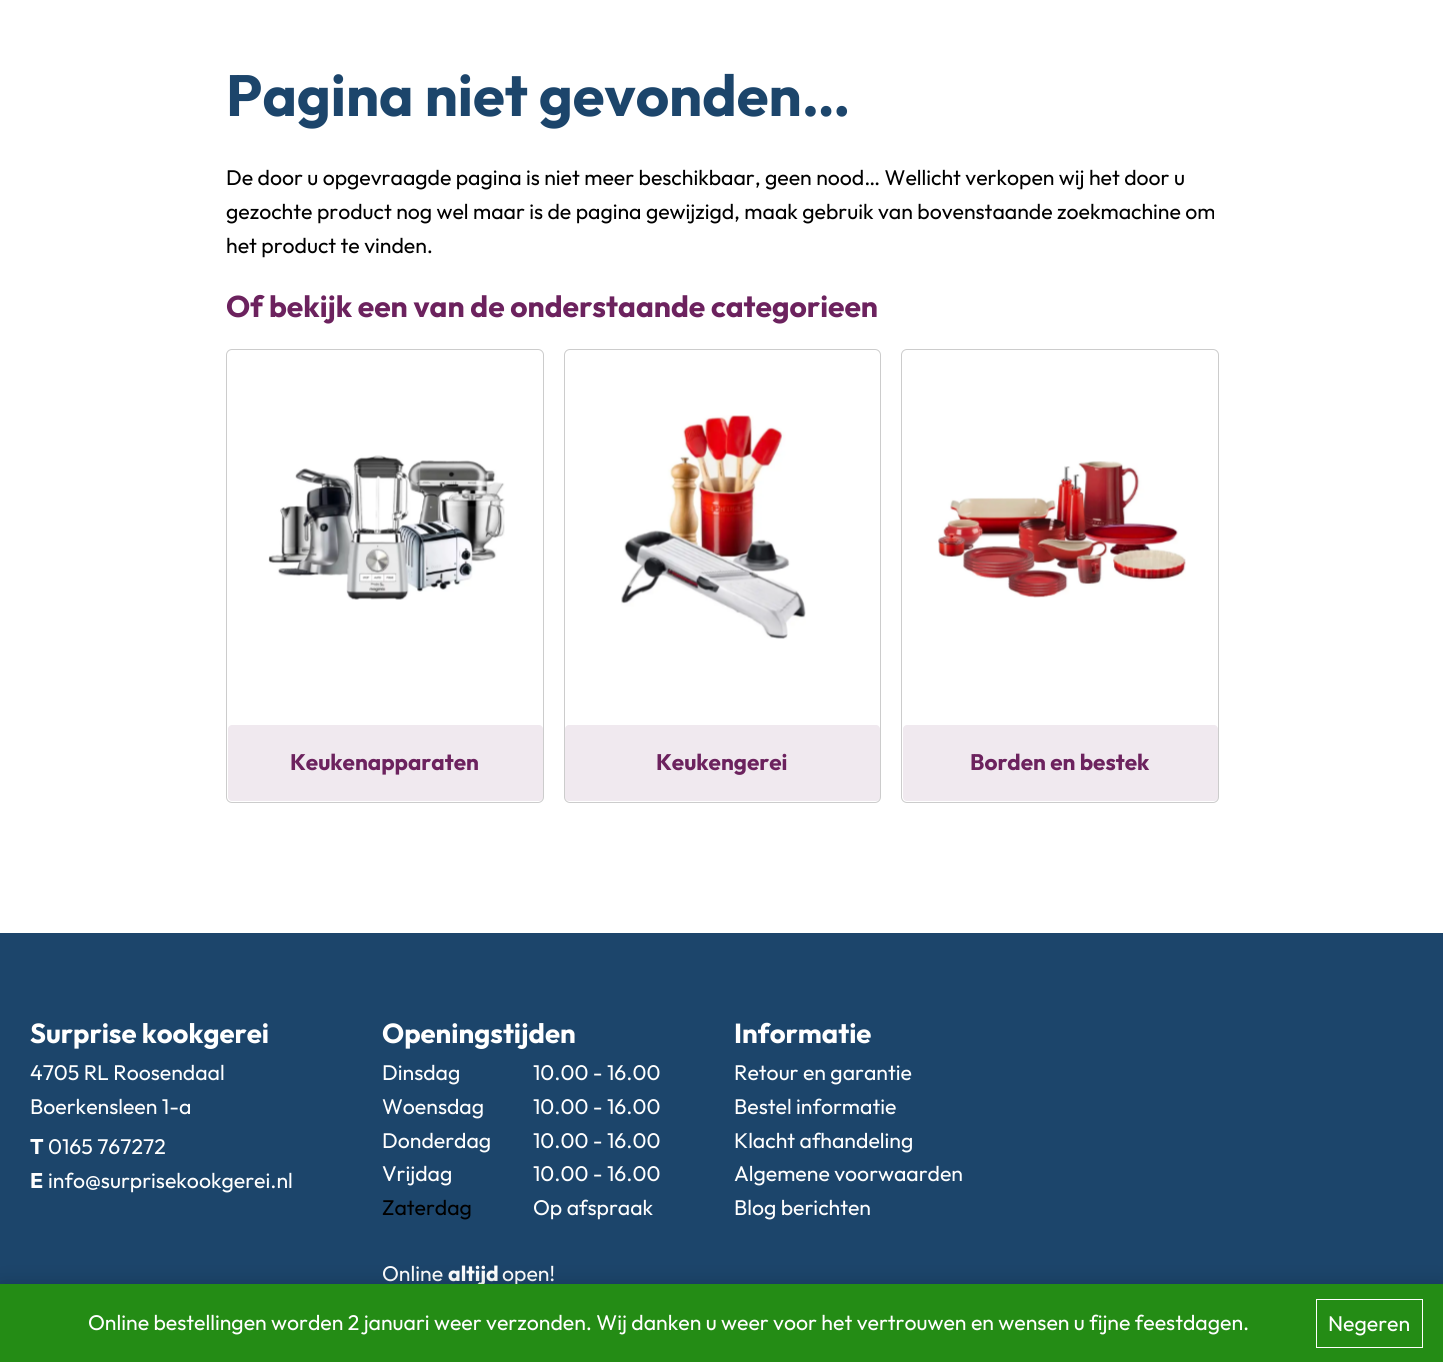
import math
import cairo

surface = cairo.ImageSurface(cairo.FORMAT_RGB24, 1443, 1362)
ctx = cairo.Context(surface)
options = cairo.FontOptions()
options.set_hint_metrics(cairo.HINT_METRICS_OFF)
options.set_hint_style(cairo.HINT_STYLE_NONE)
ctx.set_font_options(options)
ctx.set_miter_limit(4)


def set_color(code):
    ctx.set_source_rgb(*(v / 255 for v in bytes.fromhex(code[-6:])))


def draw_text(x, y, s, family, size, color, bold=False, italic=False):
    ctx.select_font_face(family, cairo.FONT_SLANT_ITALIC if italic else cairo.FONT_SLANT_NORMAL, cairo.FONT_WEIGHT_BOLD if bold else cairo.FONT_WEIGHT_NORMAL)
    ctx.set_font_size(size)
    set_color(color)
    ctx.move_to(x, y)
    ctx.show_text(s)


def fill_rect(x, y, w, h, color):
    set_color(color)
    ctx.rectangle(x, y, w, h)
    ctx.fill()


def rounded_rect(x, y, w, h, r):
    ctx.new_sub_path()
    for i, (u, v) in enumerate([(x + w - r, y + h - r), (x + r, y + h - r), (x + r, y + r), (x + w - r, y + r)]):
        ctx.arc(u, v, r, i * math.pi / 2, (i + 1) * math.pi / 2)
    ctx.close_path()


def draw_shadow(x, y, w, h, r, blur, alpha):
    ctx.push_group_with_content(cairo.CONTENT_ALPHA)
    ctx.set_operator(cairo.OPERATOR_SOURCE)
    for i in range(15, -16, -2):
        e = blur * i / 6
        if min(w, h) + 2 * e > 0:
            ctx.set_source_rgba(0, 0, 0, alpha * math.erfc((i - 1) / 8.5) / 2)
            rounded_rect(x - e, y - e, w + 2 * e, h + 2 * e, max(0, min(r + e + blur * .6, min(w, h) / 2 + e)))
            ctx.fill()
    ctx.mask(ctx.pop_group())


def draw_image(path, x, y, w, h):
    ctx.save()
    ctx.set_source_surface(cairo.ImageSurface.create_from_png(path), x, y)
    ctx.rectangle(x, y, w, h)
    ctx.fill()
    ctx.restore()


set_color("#ffffff")
ctx.paint()
draw_text(226, 116, "Pagina niet gevonden…", "Outfit", 58, "#1c456b", bold=True)
draw_text(226, 185, "De door u opgevraagde pagina is niet meer beschikbaar, geen nood… Wellicht verkopen wij het door u", "Outfit", 21.25, "#000000")
draw_text(226, 219, "gezochte product nog wel maar is de pagina gewijzigd, maak gebruik van bovenstaande zoekmachine om", "Outfit", 21.25, "#000000")
draw_text(226, 253, "het product te vinden.", "Outfit", 21.25, "#000000")
draw_text(226, 317, "Of bekijk een van de onderstaande categorieen", "Outfit", 30, "#6c225e", bold=True)
rounded_rect(226.5, 349.5, 317, 453, 5.5)
set_color("#cccccc")
ctx.set_line_width(1)
ctx.stroke()
draw_image("assets/img1.png", 268, 455, 237, 145)
ctx.set_source_rgba(0.424, 0.133, 0.369, 0.1)
rounded_rect(228, 725, 315, 76, 4)
ctx.fill()
draw_text(290, 770, "Keukenapparaten", "Outfit", 22.5, "#6c225e", bold=True)
rounded_rect(564.5, 349.5, 316, 453, 5.5)
set_color("#cccccc")
ctx.stroke()
draw_image("assets/img2.png", 621, 415, 185, 224)
ctx.set_source_rgba(0.424, 0.133, 0.369, 0.1)
rounded_rect(565, 725, 315, 76, 4)
ctx.fill()
draw_text(656, 770, "Keukengerei", "Outfit", 22.5, "#6c225e", bold=True)
rounded_rect(901.5, 349.5, 317, 453, 5.5)
set_color("#cccccc")
ctx.stroke()
draw_image("assets/img3.png", 938, 461, 248, 137)
ctx.set_source_rgba(0.424, 0.133, 0.369, 0.1)
rounded_rect(903, 725, 315, 76, 4)
ctx.fill()
draw_text(970, 770, "Borden en bestek", "Outfit", 22.5, "#6c225e", bold=True)
fill_rect(0, 933, 1443, 351, "#1c456b")
draw_text(30, 1043, "Surprise kookgerei", "Outfit", 27.5, "#ffffff", bold=True)
draw_text(30, 1080, "4705 RL Roosendaal", "Outfit", 21.25, "#ffffff")
draw_text(30, 1114, "Boerkensleen 1-a", "Outfit", 21.25, "#ffffff")
draw_text(30, 1154, "T", "Outfit", 21.25, "#ffffff", bold=True)
draw_text(48, 1154, "0165 767272", "Outfit", 21.25, "#ffffff")
draw_text(30, 1188, "E", "Outfit", 21.25, "#ffffff", bold=True)
draw_text(48, 1188, "info@surprisekookgerei.nl", "Outfit", 21.25, "#ffffff")
draw_text(382, 1043, "Openingstijden", "Outfit", 27.5, "#ffffff", bold=True)
draw_text(382, 1080, "Dinsdag", "Outfit", 21.25, "#ffffff")
draw_text(533, 1080, "10.00 - 16.00", "Outfit", 21.25, "#ffffff")
draw_text(382, 1114, "Woensdag", "Outfit", 21.25, "#ffffff")
draw_text(533, 1114, "10.00 - 16.00", "Outfit", 21.25, "#ffffff")
draw_text(382, 1148, "Donderdag", "Outfit", 21.25, "#ffffff")
draw_text(533, 1148, "10.00 - 16.00", "Outfit", 21.25, "#ffffff")
draw_text(382, 1181, "Vrijdag", "Outfit", 21.25, "#ffffff")
draw_text(533, 1181, "10.00 - 16.00", "Outfit", 21.25, "#ffffff")
draw_text(382, 1215, "Zaterdag", "Outfit", 21.25, "#000000")
draw_text(533, 1215, "Op afspraak", "Outfit", 21.25, "#ffffff")
draw_text(382, 1281, "Online", "Outfit", 21.25, "#ffffff")
draw_text(448, 1281, "altijd", "Outfit", 21.25, "#ffffff", bold=True)
draw_text(502, 1281, "open!", "Outfit", 21.25, "#ffffff")
draw_text(734, 1043, "Informatie", "Outfit", 27.5, "#ffffff", bold=True)
draw_text(734, 1080, "Retour en garantie", "Outfit", 21.25, "#ffffff")
draw_text(734, 1114, "Bestel informatie", "Outfit", 21.25, "#ffffff")
draw_text(734, 1148, "Klacht afhandeling", "Outfit", 21.25, "#ffffff")
draw_text(734, 1181, "Algemene voorwaarden", "Outfit", 21.25, "#ffffff")
draw_text(734, 1215, "Blog berichten", "Outfit", 21.25, "#ffffff")
set_color("#000000")
draw_shadow(0, 1285, 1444, 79, 0, 10.5, 0.2)
fill_rect(0, 1284, 1443, 78, "#248c15")
draw_text(88, 1330, "Online bestellingen worden 2 januari weer verzonden. Wij danken u weer voor het vertrouwen en wensen u fijne feestdagen.", "Outfit", 21.25, "#ffffff")
ctx.rectangle(1316.5, 1299.5, 106, 48)
ctx.stroke()
draw_text(1328, 1331, "Negeren", "Outfit", 21.25, "#ffffff")
surface.write_to_png("output.png")
